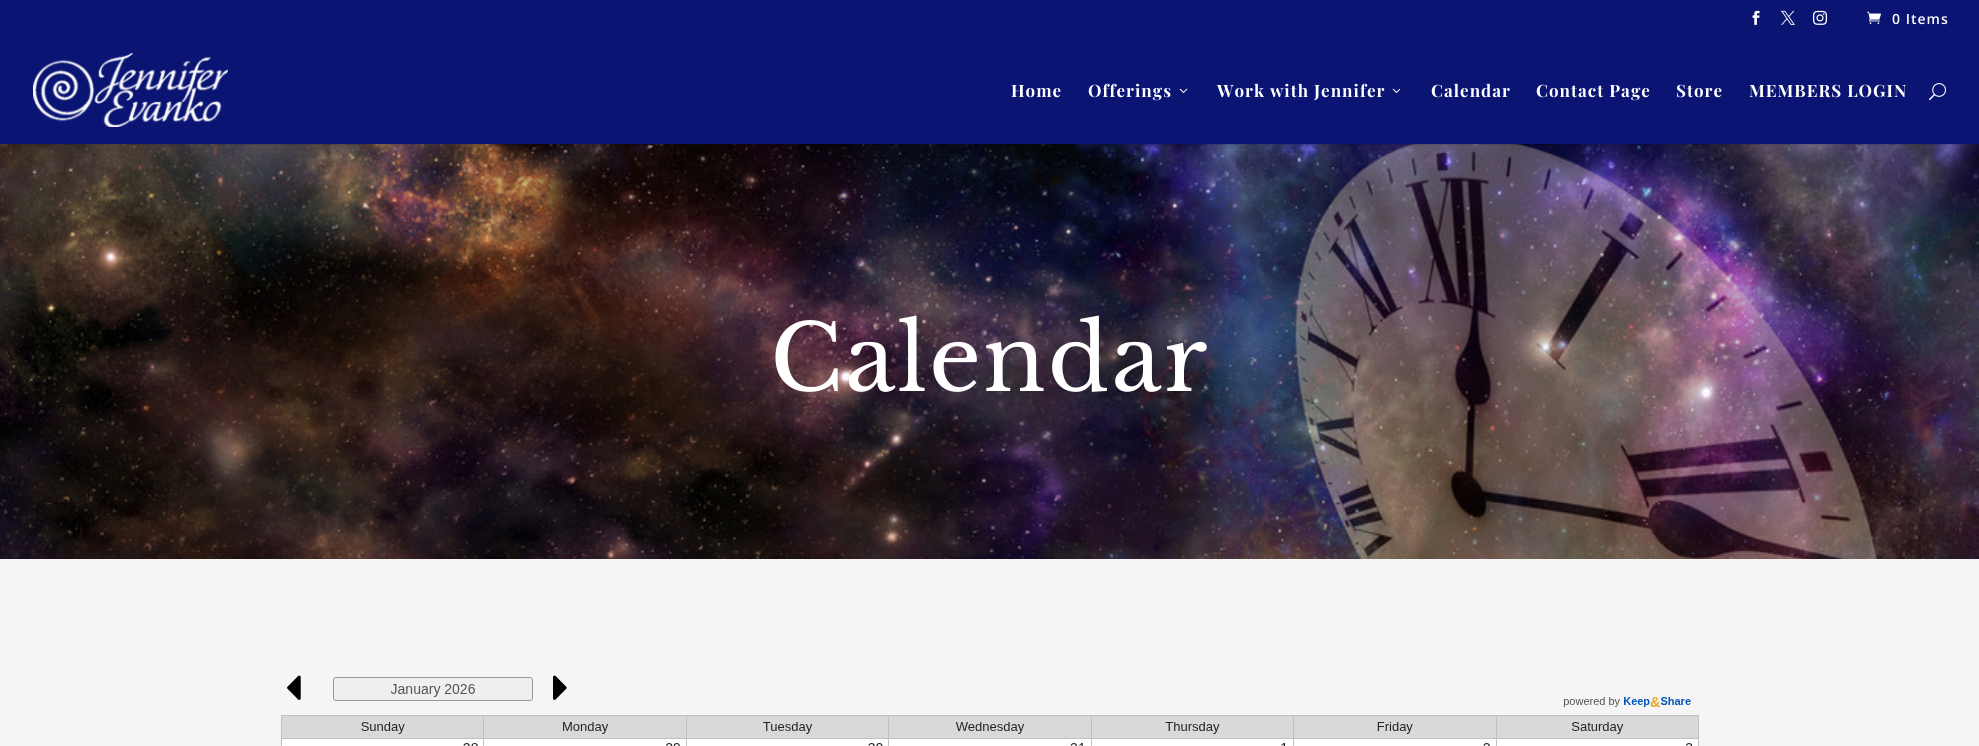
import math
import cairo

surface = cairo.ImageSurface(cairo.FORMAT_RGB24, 1979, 746)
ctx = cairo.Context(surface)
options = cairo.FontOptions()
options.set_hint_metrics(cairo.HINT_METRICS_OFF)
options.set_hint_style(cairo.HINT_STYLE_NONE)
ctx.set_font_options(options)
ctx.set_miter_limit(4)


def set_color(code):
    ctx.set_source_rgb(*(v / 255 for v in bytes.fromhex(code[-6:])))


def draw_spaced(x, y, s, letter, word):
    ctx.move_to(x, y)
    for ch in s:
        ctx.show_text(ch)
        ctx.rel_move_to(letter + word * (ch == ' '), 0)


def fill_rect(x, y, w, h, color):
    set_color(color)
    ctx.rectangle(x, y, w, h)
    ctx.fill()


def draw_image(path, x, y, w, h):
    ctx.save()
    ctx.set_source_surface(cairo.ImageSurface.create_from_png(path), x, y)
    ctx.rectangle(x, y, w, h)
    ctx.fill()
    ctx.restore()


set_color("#0a1473")
ctx.paint()
draw_image("assets/img1.png", 1752, 10, 8, 15)
draw_image("assets/img2.png", 1781, 10, 14, 15)
draw_image("assets/img3.png", 1813, 10, 14, 15)
draw_image("assets/img4.png", 1867, 11, 14, 13)
ctx.select_font_face("Open Sans SemiBold")
ctx.set_font_size(14)
set_color("#ffffff")
draw_spaced(1892, 24, "0 Items", 1, 0)
draw_image("assets/img8.png", 0, 144, 1979, 415)
ctx.set_source_rgba(0, 0, 0, 0.1)
ctx.rectangle(0, 144, 1979, 1)
ctx.fill()
draw_image("assets/img5.png", 33, 53, 195, 74)
ctx.select_font_face("Playfair Display", cairo.FONT_SLANT_NORMAL, cairo.FONT_WEIGHT_BOLD)
ctx.set_font_size(17)
set_color("#ffffff")
draw_spaced(1011, 97, "Home", 1, 0)
draw_spaced(1088, 97, "Offerings", 1, 0)
draw_image("assets/img6.png", 1179, 88, 9, 5)
draw_spaced(1217, 97, "Work with Jennifer", 1, 0)
draw_image("assets/img6.png", 1392, 88, 9, 5)
draw_spaced(1431, 97, "Calendar", 1, 0)
draw_spaced(1536, 97, "Contact Page", 1, 0)
draw_spaced(1676, 97, "Store", 1, 0)
draw_spaced(1749, 97, "MEMBERS LOGIN", 1, 0)
draw_image("assets/img7.png", 1929, 83, 17, 18)
ctx.select_font_face("Libre Baskerville")
ctx.set_font_size(91)
draw_spaced(770, 391, "Calendar", 2, 0)
fill_rect(0, 559, 1979, 187, "#f5f5f5")
draw_image("assets/img9.png", 281, 675, 1418, 71)
surface.write_to_png("output.png")
